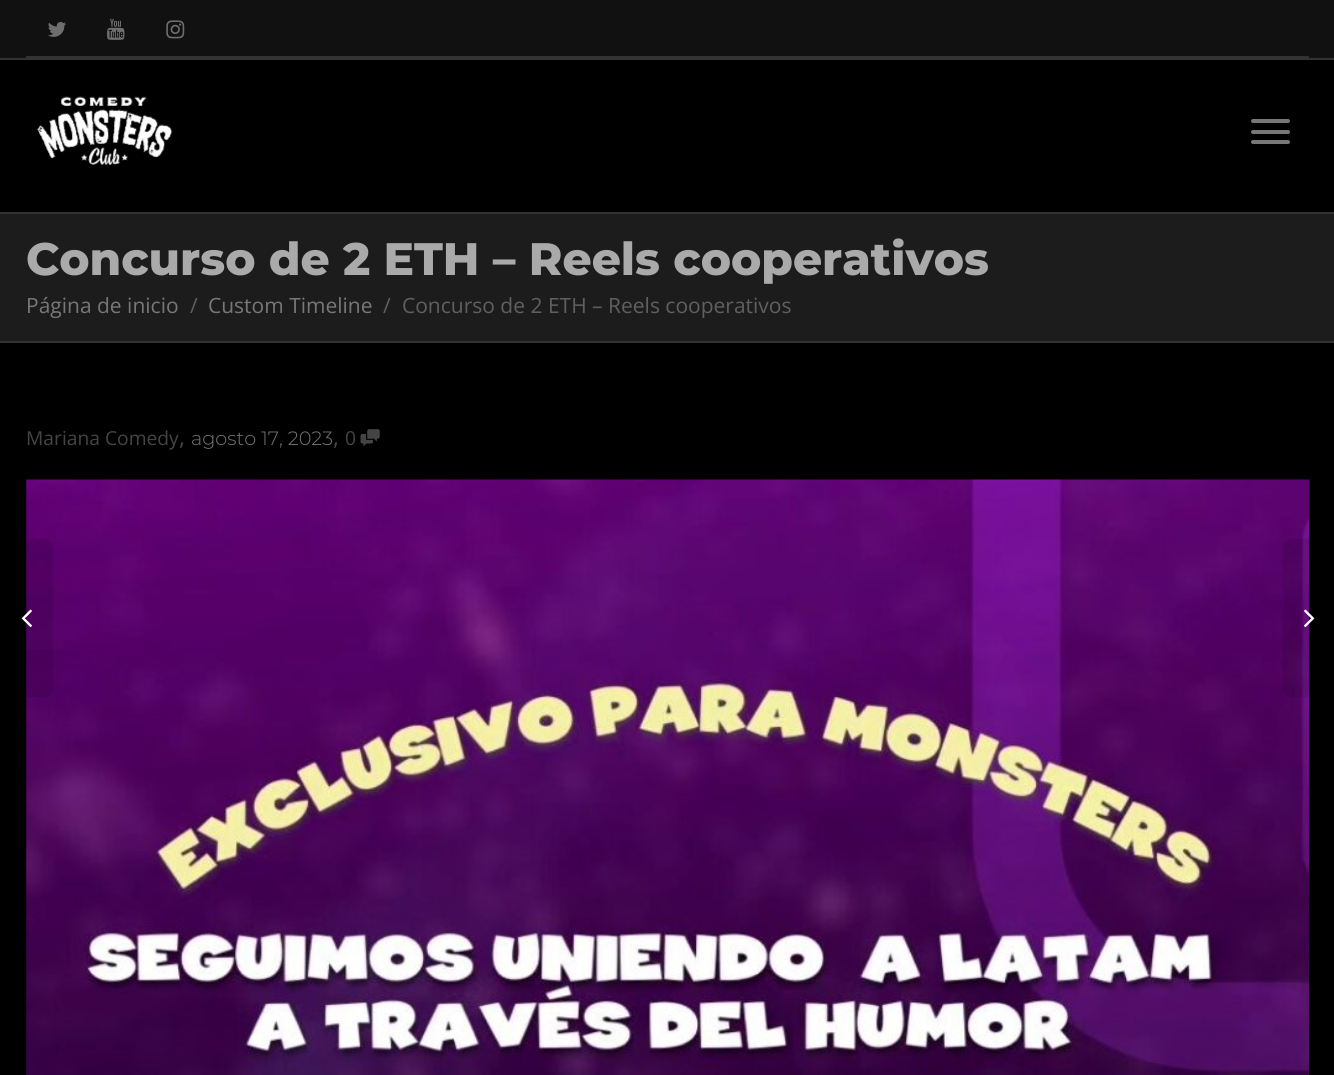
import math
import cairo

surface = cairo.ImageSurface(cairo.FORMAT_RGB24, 1334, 1075)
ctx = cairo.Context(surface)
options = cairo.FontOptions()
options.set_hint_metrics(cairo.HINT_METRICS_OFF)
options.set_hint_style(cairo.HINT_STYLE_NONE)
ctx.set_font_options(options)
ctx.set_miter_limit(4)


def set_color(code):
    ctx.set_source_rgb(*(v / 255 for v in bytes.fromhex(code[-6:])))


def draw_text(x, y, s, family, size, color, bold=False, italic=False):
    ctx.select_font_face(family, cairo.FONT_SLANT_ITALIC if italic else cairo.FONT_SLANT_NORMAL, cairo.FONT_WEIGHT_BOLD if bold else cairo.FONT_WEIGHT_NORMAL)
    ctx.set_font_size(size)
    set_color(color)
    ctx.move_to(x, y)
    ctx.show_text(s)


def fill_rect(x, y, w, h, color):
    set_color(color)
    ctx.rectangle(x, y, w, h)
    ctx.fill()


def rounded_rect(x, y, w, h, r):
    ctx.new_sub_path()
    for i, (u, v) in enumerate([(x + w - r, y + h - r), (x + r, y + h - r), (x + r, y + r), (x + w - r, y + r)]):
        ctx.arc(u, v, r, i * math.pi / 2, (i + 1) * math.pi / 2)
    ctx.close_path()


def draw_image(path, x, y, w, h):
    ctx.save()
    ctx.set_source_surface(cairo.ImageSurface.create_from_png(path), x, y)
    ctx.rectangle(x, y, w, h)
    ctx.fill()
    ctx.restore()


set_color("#000000")
ctx.paint()
fill_rect(0, 0, 1334, 58, "#111111")
fill_rect(0, 58, 1334, 2, "#333333")
fill_rect(26, 56, 1283, 2, "#333333")
draw_image("assets/img1.png", 48, 21, 18, 16)
draw_image("assets/img2.png", 107, 18, 18, 22)
draw_image("assets/img3.png", 166, 20, 19, 19)
fill_rect(0, 212, 1334, 2, "#333333")
draw_image("assets/img4.png", 37, 96, 136, 69)
set_color("#777777")
rounded_rect(1251, 119, 39, 4, 2)
ctx.fill()
rounded_rect(1251, 130, 39, 4, 2)
ctx.fill()
rounded_rect(1251, 140, 39, 4, 2)
ctx.fill()
fill_rect(0, 214, 1334, 127, "#1c1c1c")
fill_rect(0, 341, 1334, 2, "#333333")
draw_text(26, 275, "Concurso de 2 ETH – Reels cooperativos", "Montserrat ExtraBold", 45.5, "#aaaaaa")
draw_text(26, 313, "Página de inicio", "Open Sans", 21, "#777777")
draw_text(190, 313, "/", "Open Sans", 21, "#5f5f5f")
draw_text(208, 313, "Custom Timeline", "Open Sans", 21, "#777777")
draw_text(383, 313, "/", "Open Sans", 21, "#5f5f5f")
draw_text(402, 313, "Concurso de 2 ETH – Reels cooperativos", "Open Sans", 21, "#5f5f5f")
draw_text(26, 445, "Mariana Comedy", "Open Sans", 19.25, "#444444")
draw_text(179, 445, ",", "Open Sans", 23, "#444444")
draw_text(191, 445, "agosto 17, 2023", "Montserrat Light", 19.25, "#777777")
draw_text(333, 445, ",", "Open Sans", 23, "#444444")
draw_text(345, 445, "0", "Open Sans", 19.25, "#444444")
draw_image("assets/img5.png", 360, 429, 20, 18)
draw_image("assets/img6.png", 26, 479, 1283, 596)
ctx.set_source_rgba(0, 0, 0, 0.1)
ctx.new_path()
ctx.move_to(-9, 539)
ctx.line_to(44, 539)
ctx.curve_to(49, 539, 53, 543, 53, 548)
ctx.line_to(53, 688)
ctx.curve_to(53, 693, 49, 697, 44, 697)
ctx.line_to(-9, 697)
ctx.close_path()
ctx.fill()
draw_image("assets/img7.png", 21, 609, 11, 19)
ctx.new_path()
ctx.move_to(1292, 539)
ctx.line_to(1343, 539)
ctx.line_to(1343, 697)
ctx.line_to(1292, 697)
ctx.curve_to(1287, 697, 1283, 693, 1283, 688)
ctx.line_to(1283, 548)
ctx.curve_to(1283, 543, 1287, 539, 1292, 539)
ctx.close_path()
ctx.fill()
draw_image("assets/img8.png", 1304, 609, 11, 19)
surface.write_to_png("output.png")
